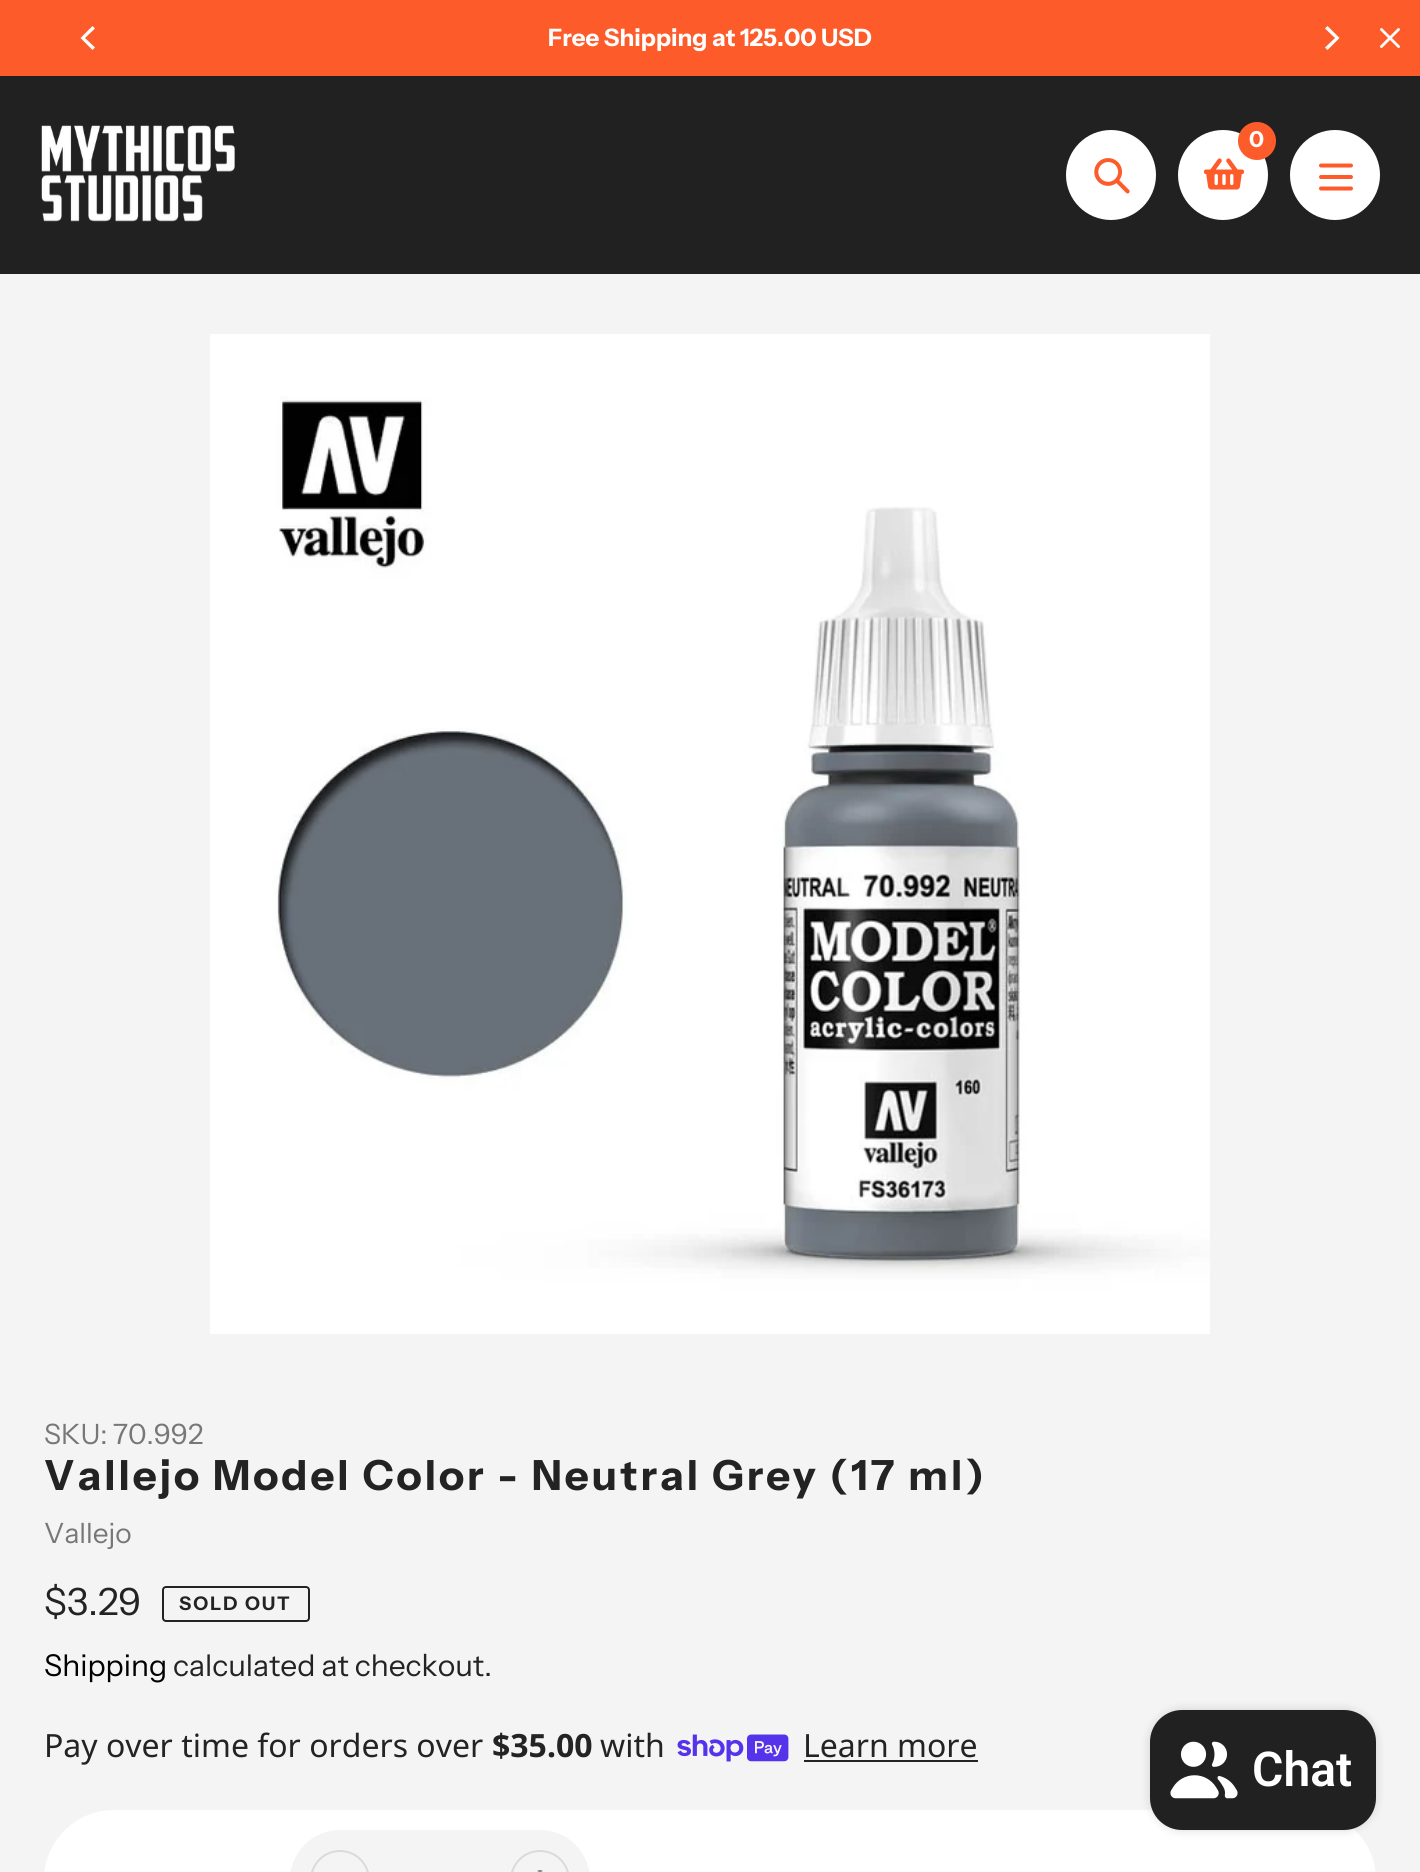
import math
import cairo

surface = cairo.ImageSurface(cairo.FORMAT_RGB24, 1420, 1872)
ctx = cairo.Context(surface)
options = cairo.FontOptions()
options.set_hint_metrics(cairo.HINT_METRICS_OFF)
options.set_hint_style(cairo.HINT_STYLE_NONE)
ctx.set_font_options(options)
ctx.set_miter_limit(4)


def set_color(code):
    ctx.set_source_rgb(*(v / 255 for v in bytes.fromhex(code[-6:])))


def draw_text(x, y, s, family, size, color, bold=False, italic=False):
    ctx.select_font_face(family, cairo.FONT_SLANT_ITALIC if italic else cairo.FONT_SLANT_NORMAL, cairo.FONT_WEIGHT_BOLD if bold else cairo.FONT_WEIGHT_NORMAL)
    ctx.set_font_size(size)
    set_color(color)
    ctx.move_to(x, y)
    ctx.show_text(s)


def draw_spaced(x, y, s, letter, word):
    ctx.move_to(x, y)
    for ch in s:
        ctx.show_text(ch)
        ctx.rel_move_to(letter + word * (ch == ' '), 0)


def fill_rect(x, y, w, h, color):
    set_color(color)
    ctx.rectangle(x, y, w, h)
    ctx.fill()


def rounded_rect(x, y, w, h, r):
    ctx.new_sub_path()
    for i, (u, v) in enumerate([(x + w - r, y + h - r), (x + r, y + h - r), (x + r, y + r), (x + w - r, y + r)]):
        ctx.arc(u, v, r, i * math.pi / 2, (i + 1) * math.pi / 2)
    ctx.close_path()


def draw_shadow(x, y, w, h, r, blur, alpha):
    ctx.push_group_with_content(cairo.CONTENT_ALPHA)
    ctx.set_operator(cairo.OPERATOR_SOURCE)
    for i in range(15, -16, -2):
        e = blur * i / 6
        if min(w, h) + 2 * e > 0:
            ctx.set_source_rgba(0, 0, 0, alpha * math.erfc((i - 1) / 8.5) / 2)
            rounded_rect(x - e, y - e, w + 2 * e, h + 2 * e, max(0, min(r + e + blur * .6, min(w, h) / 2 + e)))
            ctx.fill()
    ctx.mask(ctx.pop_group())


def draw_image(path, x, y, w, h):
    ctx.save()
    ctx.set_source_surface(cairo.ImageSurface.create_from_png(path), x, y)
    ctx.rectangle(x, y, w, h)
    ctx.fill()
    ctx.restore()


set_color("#f4f4f4")
ctx.paint()
fill_rect(0, 0, 1420, 76, "#fd5b2a")
set_color("#ffffff")
ctx.new_path()
ctx.move_to(80.5, 38)
ctx.line_to(92.5, 50)
ctx.line_to(95, 47.5)
ctx.line_to(85, 38)
ctx.line_to(95, 28.5)
ctx.line_to(92.5, 26)
ctx.close_path()
ctx.fill()
draw_text(548, 46, "Free Shipping at 125.00 USD", "Instrument Sans", 24, "#ffffff", bold=True)
ctx.new_path()
ctx.move_to(1339.5, 38)
ctx.line_to(1327.5, 26)
ctx.line_to(1325, 28.5)
ctx.line_to(1335, 38)
ctx.line_to(1325, 47.5)
ctx.line_to(1327.5, 50)
ctx.close_path()
ctx.fill()
draw_image("assets/img1.png", 1380, 28, 20, 20)
fill_rect(0, 76, 1420, 198, "#212121")
draw_image("assets/img2.png", 41, 125, 194, 97)
set_color("#ffffff")
ctx.arc(1111, 175, 45, 0, 2 * math.pi)
ctx.fill()
draw_image("assets/img3.png", 1094, 158, 36, 36)
ctx.arc(1223, 175, 45, 0, 2 * math.pi)
ctx.fill()
draw_image("assets/img4.png", 1204, 158, 40, 32)
set_color("#fd5b2a")
ctx.arc(1257, 141, 19, 0, 2 * math.pi)
ctx.fill()
draw_text(1249, 147, "0", "Instrument Sans", 22, "#ffffff", bold=True)
ctx.new_path()
ctx.arc(1335, 175, 45, 0, 2 * math.pi)
ctx.fill()
draw_image("assets/img5.png", 1319, 163, 34, 28)
draw_image("assets/img6.png", 210, 334, 1000, 1000)
draw_text(44, 1444, "SKU: 70.992", "Instrument Sans", 28, "#777777")
ctx.select_font_face("Instrument Sans", cairo.FONT_SLANT_NORMAL, cairo.FONT_WEIGHT_BOLD)
ctx.set_font_size(41.6)
set_color("#232323")
draw_spaced(44, 1490, "Vallejo Model Color - Neutral Grey (17 ml)", 3, 0)
draw_text(44, 1543, "Vallejo", "Instrument Sans", 28, "#777777")
draw_text(44, 1615, "$3.29", "Instrument Sans", 37.5, "#232323")
rounded_rect(163, 1587, 146, 34, 3)
ctx.stroke()
ctx.select_font_face("Instrument Sans", cairo.FONT_SLANT_NORMAL, cairo.FONT_WEIGHT_BOLD)
ctx.set_font_size(18.75)
draw_spaced(179, 1610, "SOLD OUT", 2, 0)
draw_text(44, 1676, "Shipping", "Instrument Sans", 30, "#000000")
draw_text(173, 1676, "calculated at checkout.", "Instrument Sans", 30, "#232323")
draw_text(44, 1757, "Pay over time for orders over", "Noto Sans", 32, "#232323")
draw_text(492, 1757, "$35.00", "Noto Sans", 32, "#232323", bold=True)
draw_text(600, 1757, "with", "Noto Sans", 32, "#232323")
draw_image("assets/img7.png", 677, 1734, 112, 28)
draw_text(803, 1757, "Learn more", "Noto Sans", 32, "#232323")
fill_rect(804, 1760, 174, 2, "#232323")
set_color("#ffffff")
rounded_rect(44, 1810, 1332, 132, 70)
ctx.fill()
set_color("#f4f4f4")
rounded_rect(290, 1830, 300, 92, 50)
ctx.fill()
rounded_rect(311, 1851, 58, 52, 29)
set_color("#d7dbdb")
ctx.stroke()
draw_image("assets/img8.png", 537, 1870, 6, 2)
rounded_rect(511, 1851, 58, 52, 29)
ctx.stroke()
set_color("#000000")
draw_shadow(1150, 1710, 226, 120, 32, 5, 0.15)
set_color("#212121")
rounded_rect(1150, 1710, 226, 120, 32)
ctx.fill()
draw_image("assets/img9.png", 1170, 1741, 68, 58)
draw_text(1252, 1786, "Chat", "Roboto SemiBold", 48, "#ffffff")
surface.write_to_png("output.png")
